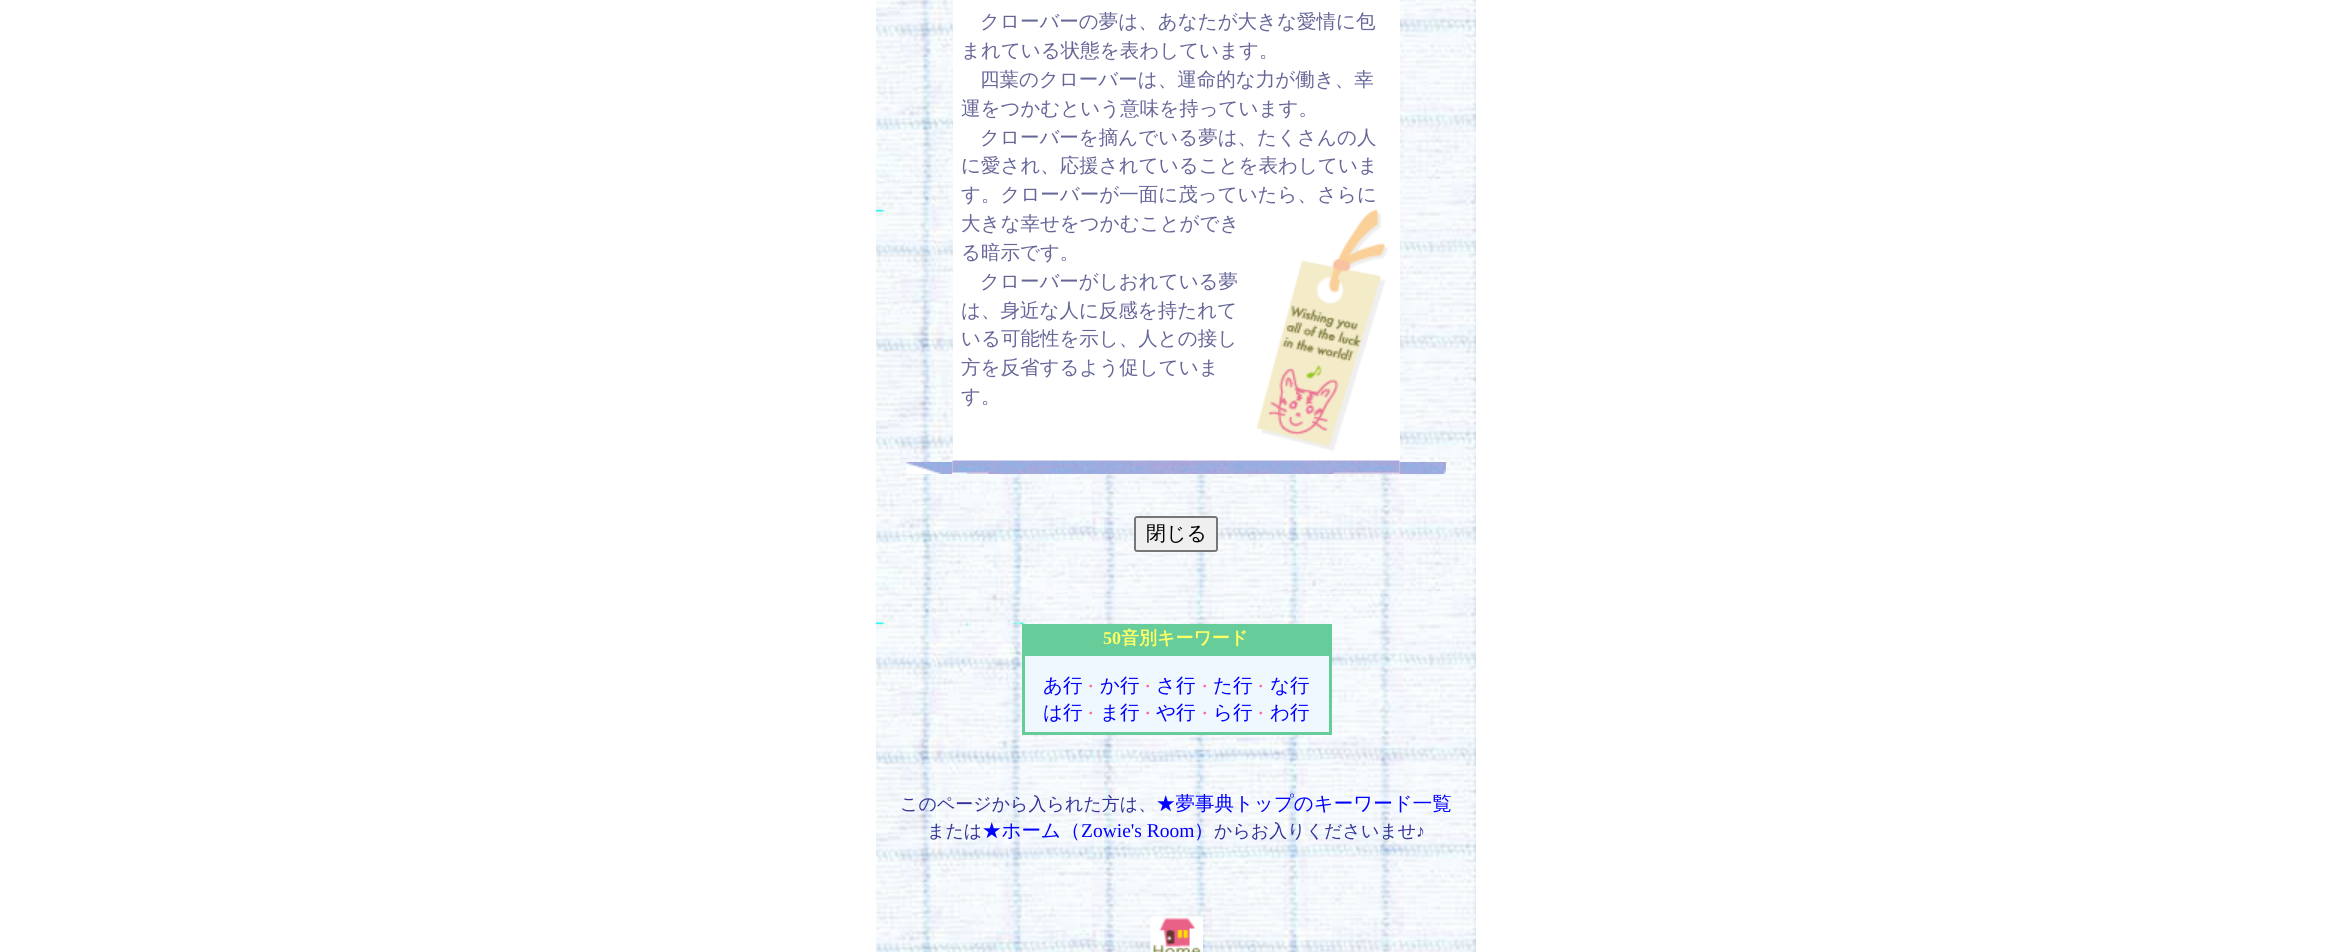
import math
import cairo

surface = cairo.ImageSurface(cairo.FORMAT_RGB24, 2351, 952)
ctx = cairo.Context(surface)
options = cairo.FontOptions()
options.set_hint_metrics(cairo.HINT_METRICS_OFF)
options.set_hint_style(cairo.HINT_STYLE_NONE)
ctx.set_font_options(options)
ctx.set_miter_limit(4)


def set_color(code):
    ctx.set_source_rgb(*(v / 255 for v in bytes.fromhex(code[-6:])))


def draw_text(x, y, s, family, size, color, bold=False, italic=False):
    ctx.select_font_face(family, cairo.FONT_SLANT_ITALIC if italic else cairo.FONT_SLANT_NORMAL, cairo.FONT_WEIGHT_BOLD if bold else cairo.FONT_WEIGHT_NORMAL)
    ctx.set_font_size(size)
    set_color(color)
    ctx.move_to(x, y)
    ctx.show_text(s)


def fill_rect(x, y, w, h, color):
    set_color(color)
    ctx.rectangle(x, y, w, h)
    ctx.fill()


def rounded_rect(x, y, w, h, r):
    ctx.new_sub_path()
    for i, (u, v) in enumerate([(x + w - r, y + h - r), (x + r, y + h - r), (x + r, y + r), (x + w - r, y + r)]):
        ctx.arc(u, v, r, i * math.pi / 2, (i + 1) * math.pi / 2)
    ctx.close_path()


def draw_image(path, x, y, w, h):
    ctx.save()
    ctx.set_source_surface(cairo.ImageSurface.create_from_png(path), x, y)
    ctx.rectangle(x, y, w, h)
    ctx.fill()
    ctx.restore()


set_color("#ffffff")
ctx.paint()
draw_image("assets/img1.png", 876, 0, 600, 952)
fill_rect(953, 0, 447, 461, "#ffffff")
draw_text(980, 28, "クローバーの夢は、あなたが大きな愛情に包", "WenQuanYi Zen Hei Medium", 19.5, "#666699")
draw_text(961, 57, "まれている状態を表わしています。", "WenQuanYi Zen Hei Medium", 19.5, "#666699")
draw_text(980, 86, "四葉のクローバーは、運命的な力が働き、幸", "WenQuanYi Zen Hei Medium", 19.5, "#666699")
draw_text(961, 115, "運をつかむという意味を持っています。", "WenQuanYi Zen Hei Medium", 19.5, "#666699")
draw_text(980, 144, "クローバーを摘んでいる夢は、たくさんの人", "WenQuanYi Zen Hei Medium", 19.5, "#666699")
draw_text(961, 172, "に愛され、応援されていることを表わしていま", "WenQuanYi Zen Hei Medium", 19.5, "#666699")
draw_text(961, 201, "す。クローバーが一面に茂っていたら、さらに", "WenQuanYi Zen Hei Medium", 19.5, "#666699")
draw_text(961, 230, "大きな幸せをつかむことができ", "WenQuanYi Zen Hei Medium", 19.5, "#666699")
draw_image("assets/img2.png", 1257, 208, 131, 244)
draw_text(961, 259, "る暗示です。", "WenQuanYi Zen Hei Medium", 19.5, "#666699")
draw_text(980, 288, "クローバーがしおれている夢", "WenQuanYi Zen Hei Medium", 19.5, "#666699")
draw_text(961, 317, "は、身近な人に反感を持たれて", "WenQuanYi Zen Hei Medium", 19.5, "#666699")
draw_text(961, 345, "いる可能性を示し、人との接し", "WenQuanYi Zen Hei Medium", 19.5, "#666699")
draw_text(961, 374, "方を反省するよう促していま", "WenQuanYi Zen Hei Medium", 19.5, "#666699")
draw_text(961, 403, "す。", "WenQuanYi Zen Hei Medium", 19.5, "#666699")
draw_image("assets/img3.png", 906, 462, 47, 12)
draw_image("assets/img4.png", 952, 460, 448, 14)
draw_image("assets/img5.png", 1399, 462, 47, 12)
set_color("#efefef")
rounded_rect(1135, 517, 82, 34, 2)
ctx.fill_preserve()
set_color("#767676")
ctx.stroke()
draw_text(1146, 540, "閉じる", "WenQuanYi Zen Hei Medium", 20, "#000000")
fill_rect(1022, 624, 310, 111, "#66cc99")
draw_text(1103, 644, "50", "Liberation Serif", 18, "#ffff66", bold=True)
draw_text(1121, 644, "音別キーワード", "WenQuanYi Zen Hei", 18, "#ffff66", bold=True)
fill_rect(1025, 656, 304, 76, "#f0f8ff")
draw_text(1043, 692, "あ行", "WenQuanYi Zen Hei Medium", 19.5, "#0000ff")
draw_text(1082, 692, "・", "WenQuanYi Zen Hei Medium", 17, "#ff6699")
draw_text(1100, 692, "か行", "WenQuanYi Zen Hei Medium", 19.5, "#0000ff")
draw_text(1139, 692, "・", "WenQuanYi Zen Hei Medium", 17, "#ff6699")
draw_text(1156, 692, "さ行", "WenQuanYi Zen Hei Medium", 19.5, "#0000ff")
draw_text(1196, 692, "・", "WenQuanYi Zen Hei Medium", 17, "#ff6699")
draw_text(1213, 692, "た行", "WenQuanYi Zen Hei Medium", 19.5, "#0000ff")
draw_text(1252, 692, "・", "WenQuanYi Zen Hei Medium", 17, "#ff6699")
draw_text(1270, 692, "な行", "WenQuanYi Zen Hei Medium", 19.5, "#0000ff")
draw_text(1043, 719, "は行", "WenQuanYi Zen Hei Medium", 19.5, "#0000ff")
draw_text(1082, 719, "・", "WenQuanYi Zen Hei Medium", 17, "#ff6699")
draw_text(1100, 719, "ま行", "WenQuanYi Zen Hei Medium", 19.5, "#0000ff")
draw_text(1139, 719, "・", "WenQuanYi Zen Hei Medium", 17, "#ff6699")
draw_text(1156, 719, "や行", "WenQuanYi Zen Hei Medium", 19.5, "#0000ff")
draw_text(1196, 719, "・", "WenQuanYi Zen Hei Medium", 17, "#ff6699")
draw_text(1213, 719, "ら行", "WenQuanYi Zen Hei Medium", 19.5, "#0000ff")
draw_text(1252, 719, "・", "WenQuanYi Zen Hei Medium", 17, "#ff6699")
draw_text(1270, 719, "わ行", "WenQuanYi Zen Hei Medium", 19.5, "#0000ff")
draw_text(900, 810, "このページから入られた方は、", "WenQuanYi Zen Hei Medium", 18, "#333399")
draw_text(1156, 810, "★夢事典トップのキーワード一覧", "WenQuanYi Zen Hei Medium", 19.5, "#0000ff")
draw_text(927, 837, "または", "WenQuanYi Zen Hei Medium", 18, "#333399")
draw_text(982, 837, "★ホーム（", "WenQuanYi Zen Hei Medium", 19.5, "#0000ff")
draw_text(1081, 837, "Zowie's Room", "Liberation Serif", 19.5, "#0000ff")
draw_text(1194, 837, "）", "WenQuanYi Zen Hei Medium", 19.5, "#0000ff")
draw_text(1214, 837, "からお入りくださいませ", "WenQuanYi Zen Hei Medium", 18, "#333399")
draw_text(1416, 837, "♪", "Liberation Serif", 18, "#333399")
draw_image("assets/img6.png", 1150, 916, 53, 36)
surface.write_to_png("output.png")
